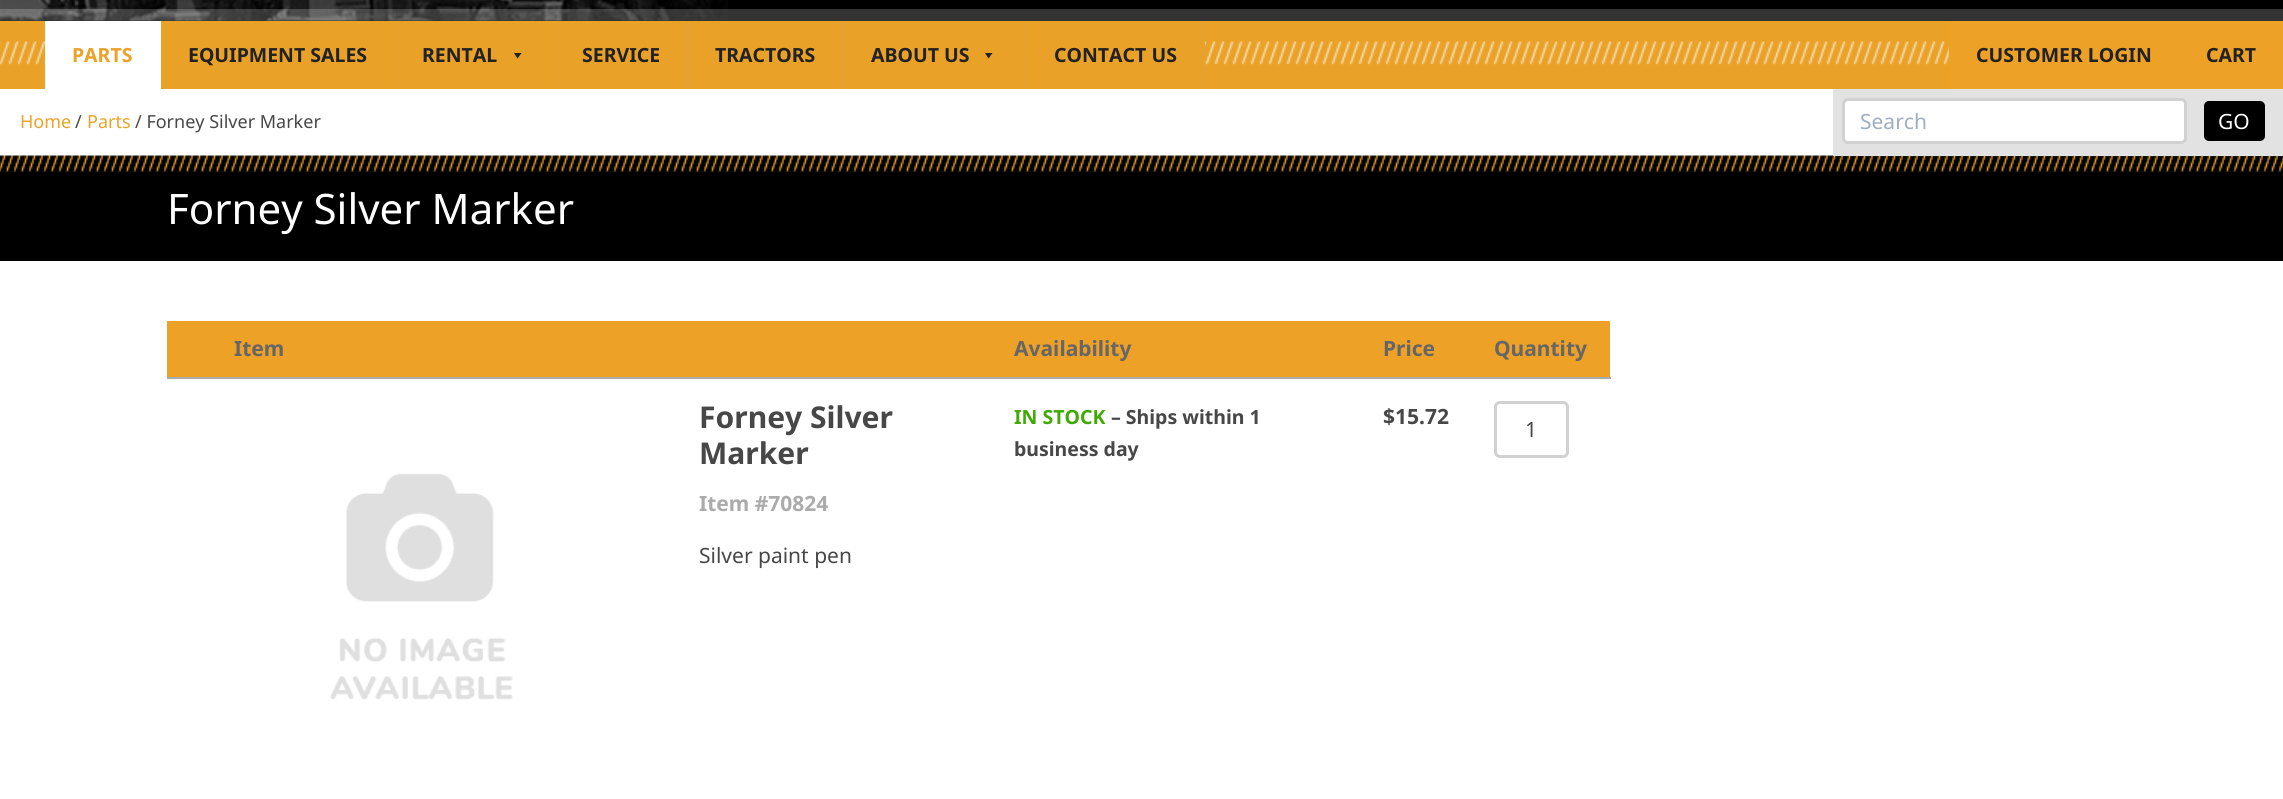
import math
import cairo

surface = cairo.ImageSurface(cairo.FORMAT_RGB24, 2283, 799)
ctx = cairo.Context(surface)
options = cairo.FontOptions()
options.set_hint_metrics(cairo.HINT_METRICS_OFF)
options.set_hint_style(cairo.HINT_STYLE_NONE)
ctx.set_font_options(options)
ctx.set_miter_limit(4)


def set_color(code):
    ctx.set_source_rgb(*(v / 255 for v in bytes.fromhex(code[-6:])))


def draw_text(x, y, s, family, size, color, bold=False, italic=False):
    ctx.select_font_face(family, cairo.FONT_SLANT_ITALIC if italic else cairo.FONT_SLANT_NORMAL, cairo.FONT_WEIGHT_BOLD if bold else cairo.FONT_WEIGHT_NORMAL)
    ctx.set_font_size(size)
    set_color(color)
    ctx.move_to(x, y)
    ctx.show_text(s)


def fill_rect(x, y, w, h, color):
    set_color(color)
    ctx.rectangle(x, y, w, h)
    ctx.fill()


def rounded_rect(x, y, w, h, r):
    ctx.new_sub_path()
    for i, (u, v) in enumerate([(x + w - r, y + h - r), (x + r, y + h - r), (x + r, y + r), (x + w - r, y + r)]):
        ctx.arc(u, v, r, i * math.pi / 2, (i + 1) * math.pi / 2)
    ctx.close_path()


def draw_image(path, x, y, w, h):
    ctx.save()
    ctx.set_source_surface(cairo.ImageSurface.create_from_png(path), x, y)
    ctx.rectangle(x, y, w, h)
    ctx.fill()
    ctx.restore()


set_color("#ffffff")
ctx.paint()
fill_rect(0, 0, 2283, 21, "#000000")
draw_image("assets/img1.png", 0, 0, 728, 21)
ctx.set_source_rgba(1, 1, 1, 0.2)
ctx.rectangle(0, 9, 2283, 12)
ctx.fill()
fill_rect(0, 21, 1949, 68, "#eaa127")
draw_image("assets/img2.png", 0, 41, 1949, 24)
fill_rect(45, 21, 116, 68, "#ffffff")
draw_text(72, 62, "PARTS", "Noto Sans", 19.5, "#eea127", bold=True)
fill_rect(161, 41, 234, 24, "#eaa127")
fill_rect(395, 21, 1, 68, "#e4a234")
draw_text(188, 62, "EQUIPMENT SALES", "Noto Sans", 19.5, "#222222", bold=True)
fill_rect(396, 41, 158, 24, "#eaa127")
fill_rect(554, 21, 1, 68, "#e4a234")
draw_text(422, 62, "RENTAL", "Noto Sans", 19.5, "#222222", bold=True)
ctx.new_path()
ctx.move_to(521.5, 53)
ctx.line_to(517.5, 58.5)
ctx.line_to(514, 53)
ctx.close_path()
ctx.fill()
fill_rect(555, 41, 132, 24, "#eaa127")
fill_rect(687, 21, 2, 68, "#e4a234")
draw_text(582, 62, "SERVICE", "Noto Sans", 19.5, "#222222", bold=True)
fill_rect(689, 41, 154, 24, "#eaa127")
fill_rect(843, 21, 2, 68, "#e4a234")
draw_text(715, 62, "TRACTORS", "Noto Sans", 19.5, "#222222", bold=True)
fill_rect(845, 41, 180, 24, "#eaa127")
fill_rect(1025, 21, 1, 68, "#e4a234")
draw_text(871, 62, "ABOUT US", "Noto Sans", 19.5, "#222222", bold=True)
ctx.new_path()
ctx.move_to(992.5, 53)
ctx.line_to(988.5, 58.5)
ctx.line_to(985, 53)
ctx.close_path()
ctx.fill()
fill_rect(1026, 41, 177, 24, "#eaa127")
fill_rect(1203, 21, 2, 68, "#e4a234")
draw_text(1054, 62, "CONTACT US", "Noto Sans", 19.5, "#222222", bold=True)
fill_rect(1949, 21, 334, 68, "#eea127")
draw_text(1976, 62, "CUSTOMER LOGIN", "Noto Sans", 19.5, "#222222", bold=True)
draw_text(2206, 62, "CART", "Noto Sans", 19.5, "#222222", bold=True)
draw_text(20, 128, "Home", "Noto Sans", 18, "#eea127")
draw_text(75, 128, "/", "Noto Sans", 18, "#474747")
draw_text(87, 128, "Parts", "Noto Sans", 18, "#eea127")
draw_text(135, 128, "/ Forney Silver Marker", "Noto Sans", 18, "#474747")
draw_image("assets/img3.png", 0, 155, 2283, 17)
fill_rect(1833, 89, 450, 67, "#e2e2e2")
set_color("#ffffff")
rounded_rect(1843.5, 99.5, 342, 43, 4.5)
ctx.fill_preserve()
set_color("#d1d1d1")
ctx.set_line_width(3)
ctx.stroke()
draw_text(1860, 129, "Search", "Noto Sans", 21, "#a0aec0")
set_color("#000000")
rounded_rect(2204, 101, 61, 40, 5)
ctx.fill()
draw_text(2218, 129, "GO", "Noto Sans", 21, "#ffffff")
fill_rect(0, 172, 2283, 89, "#000000")
draw_text(167, 224, "Forney Silver Marker", "Noto Sans", 42, "#ffffff")
fill_rect(167, 321, 1443, 56, "#eea127")
draw_text(234, 356, "Item", "Noto Sans", 21, "#666666", bold=True)
draw_text(1014, 356, "Availability", "Noto Sans", 21, "#666666", bold=True)
draw_text(1383, 356, "Price", "Noto Sans", 21, "#666666", bold=True)
fill_rect(167, 377, 1444, 2, "#ababab")
draw_text(1494, 356, "Quantity", "Noto Sans", 21, "#666666", bold=True)
draw_text(699, 428, "Forney Silver", "Noto Sans", 30, "#474747", bold=True)
draw_text(699, 464, "Marker", "Noto Sans", 30, "#474747", bold=True)
draw_text(699, 511, "Item #70824", "Noto Sans", 21, "#ababab", bold=True)
draw_text(699, 563, "Silver paint pen", "Noto Sans", 21, "#474747")
draw_text(1014, 424, "IN STOCK", "Noto Sans", 19.5, "#3faa04", bold=True)
draw_text(1111, 424, "– Ships within 1", "Noto Sans", 19.5, "#474747", bold=True)
draw_text(1014, 456, "business day", "Noto Sans", 19.5, "#474747", bold=True)
draw_text(1383, 424, "$15.72", "Noto Sans", 21, "#474747", bold=True)
rounded_rect(1495.5, 402.5, 72, 54, 4.5)
set_color("#d1d1d1")
ctx.stroke()
draw_text(1525, 437, "1", "Noto Sans", 21, "#474747")
draw_image("assets/img4.png", 330, 473, 183, 227)
surface.write_to_png("output.png")
